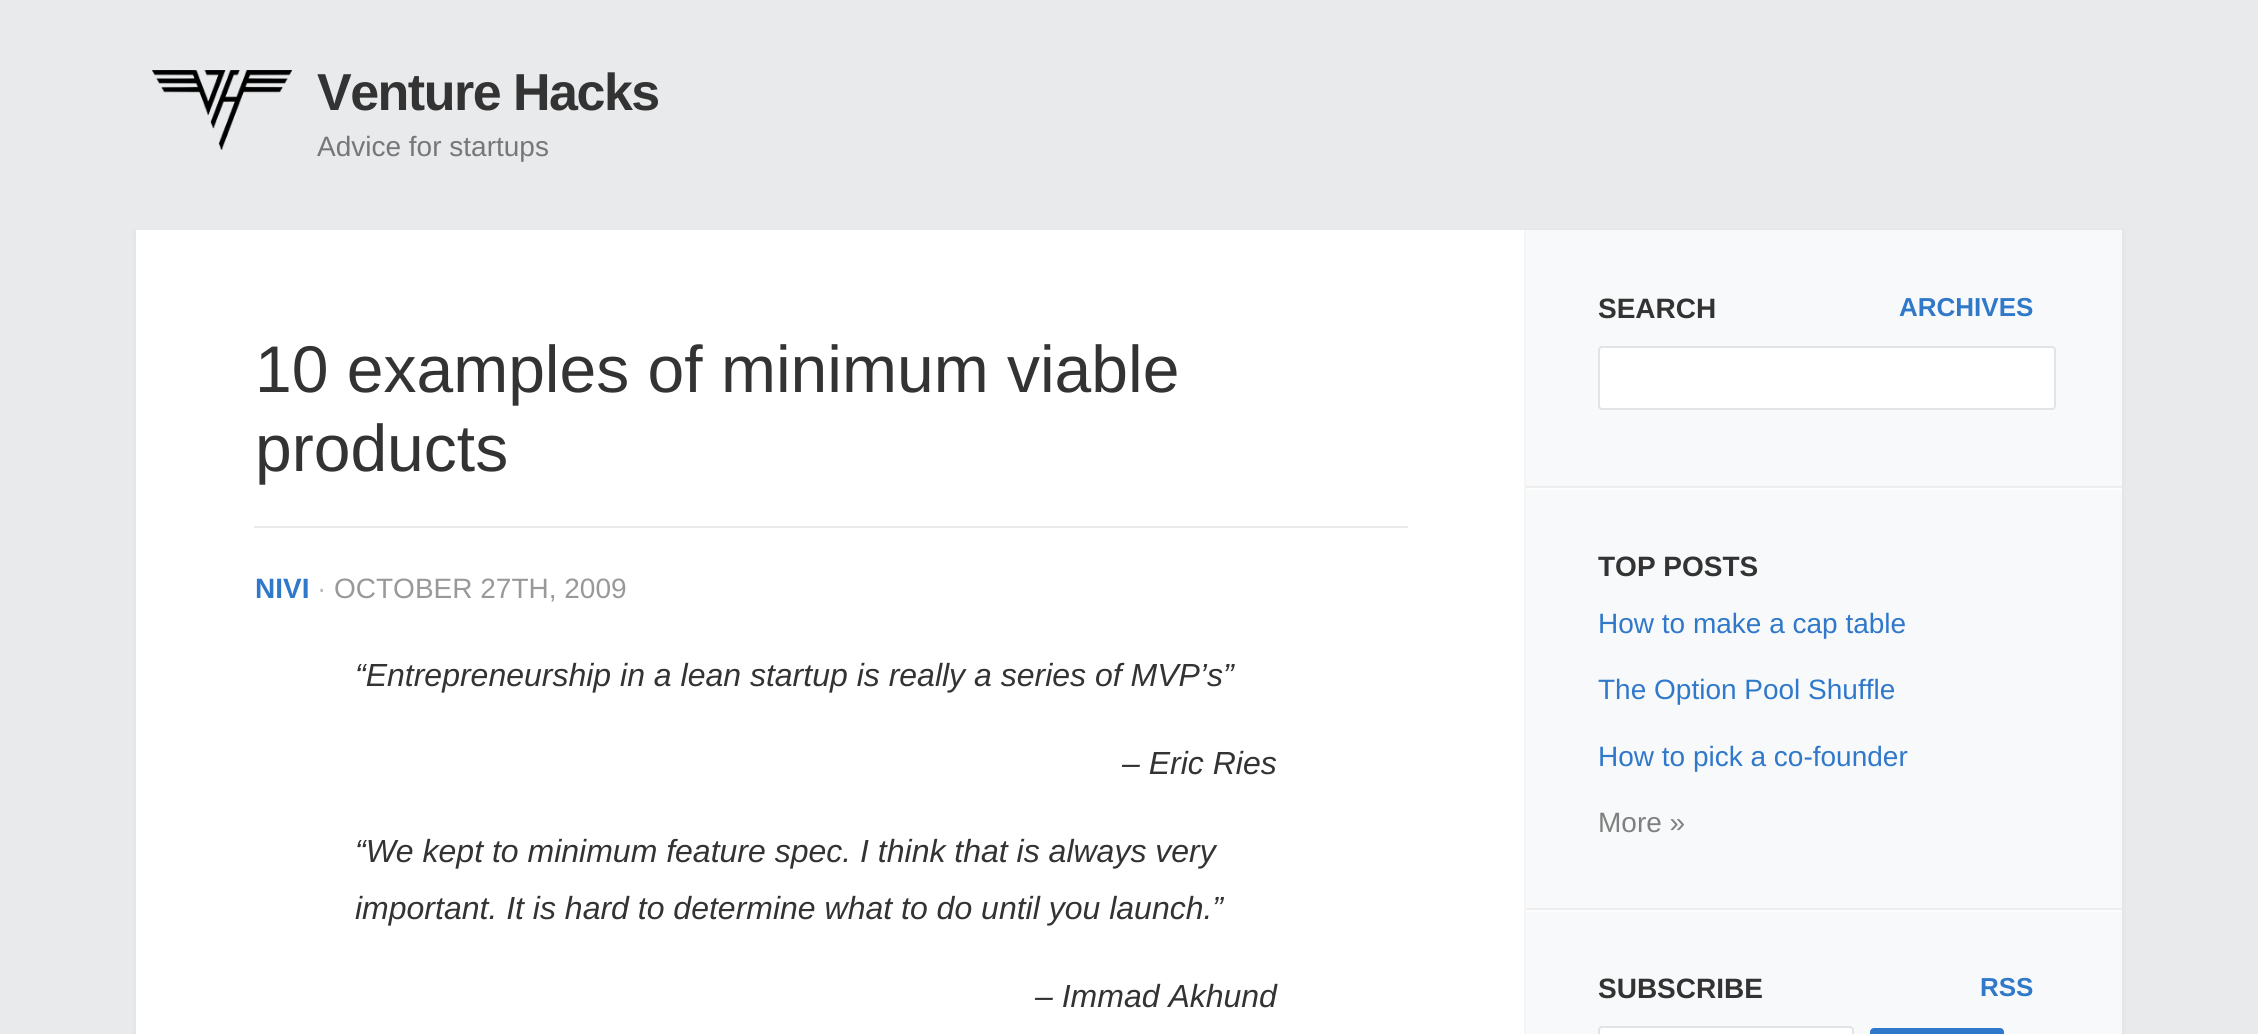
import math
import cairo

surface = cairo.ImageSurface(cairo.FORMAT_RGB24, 2258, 1034)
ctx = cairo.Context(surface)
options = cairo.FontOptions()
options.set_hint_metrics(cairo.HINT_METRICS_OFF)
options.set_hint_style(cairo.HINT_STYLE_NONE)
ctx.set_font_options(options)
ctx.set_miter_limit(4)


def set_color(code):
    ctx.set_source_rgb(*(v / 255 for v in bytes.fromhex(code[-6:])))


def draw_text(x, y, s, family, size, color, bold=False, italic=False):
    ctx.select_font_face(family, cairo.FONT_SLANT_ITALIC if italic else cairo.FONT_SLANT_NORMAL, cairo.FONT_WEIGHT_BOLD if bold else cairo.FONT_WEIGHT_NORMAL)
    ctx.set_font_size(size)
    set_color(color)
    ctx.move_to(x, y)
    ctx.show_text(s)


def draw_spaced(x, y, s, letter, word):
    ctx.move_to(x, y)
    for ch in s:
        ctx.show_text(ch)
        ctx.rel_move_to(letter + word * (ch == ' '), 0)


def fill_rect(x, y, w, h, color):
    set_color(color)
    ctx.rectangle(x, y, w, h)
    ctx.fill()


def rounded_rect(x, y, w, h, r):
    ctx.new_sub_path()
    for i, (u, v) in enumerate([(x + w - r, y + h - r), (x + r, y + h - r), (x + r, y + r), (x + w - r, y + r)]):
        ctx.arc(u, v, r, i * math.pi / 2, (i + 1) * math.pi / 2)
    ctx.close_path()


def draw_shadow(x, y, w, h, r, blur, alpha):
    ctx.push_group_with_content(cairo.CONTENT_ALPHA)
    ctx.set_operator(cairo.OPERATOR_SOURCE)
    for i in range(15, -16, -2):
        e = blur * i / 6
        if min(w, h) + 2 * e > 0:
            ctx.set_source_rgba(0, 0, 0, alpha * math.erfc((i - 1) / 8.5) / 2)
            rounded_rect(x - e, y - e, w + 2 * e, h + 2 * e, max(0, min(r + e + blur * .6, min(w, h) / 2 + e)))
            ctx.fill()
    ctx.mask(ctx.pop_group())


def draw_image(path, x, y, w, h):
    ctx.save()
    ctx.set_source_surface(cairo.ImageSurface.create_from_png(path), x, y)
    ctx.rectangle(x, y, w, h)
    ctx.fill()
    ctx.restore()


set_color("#e8eaec")
ctx.paint()
draw_image("assets/img1.png", 152, 70, 140, 80)
ctx.select_font_face("Liberation Sans", cairo.FONT_SLANT_NORMAL, cairo.FONT_WEIGHT_BOLD)
ctx.set_font_size(52)
set_color("#333333")
draw_spaced(317, 110, "Venture Hacks", -1.5, 0)
draw_text(317, 156, "Advice for startups", "Liberation Sans", 28, "#777777")
set_color("#000000")
draw_shadow(136, 232, 1986, 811, 0, 3, 0.05)
fill_rect(1526, 230, 596, 804, "#f8f9fa")
fill_rect(136, 230, 1388, 804, "#ffffff")
fill_rect(1524, 230, 2, 804, "#f5f5f5")
fill_rect(254, 526, 1154, 2, "#e8eaec")
draw_text(255, 392, "10 examples of minimum viable", "Liberation Sans", 66, "#333333")
draw_text(255, 471, "products", "Liberation Sans", 66, "#333333")
draw_text(255, 598, "NIVI", "Liberation Sans", 28, "#3078ca", bold=True)
draw_text(317, 598, "·", "Liberation Sans", 28, "#bbbbbb")
draw_text(334, 598, "OCTOBER 27TH, 2009", "Liberation Sans", 28, "#999999")
draw_text(355, 686, "“Entrepreneurship in a lean startup is really a series of MVP’s”", "Liberation Sans", 32, "#333333", italic=True)
draw_text(1122, 774, "– Eric Ries", "Liberation Sans", 32, "#333333", italic=True)
draw_text(355, 862, "“We kept to minimum feature spec. I think that is always very", "Liberation Sans", 32, "#333333", italic=True)
draw_text(355, 919, "important. It is hard to determine what to do until you launch.”", "Liberation Sans", 32, "#333333", italic=True)
draw_text(1035, 1007, "– Immad Akhund", "Liberation Sans", 32, "#333333", italic=True)
fill_rect(1526, 488, 596, 2, "#fcfdfd")
fill_rect(1526, 486, 596, 2, "#eeeeee")
draw_text(1598, 318, "SEARCH", "Liberation Sans", 28, "#333333", bold=True)
draw_text(1899, 316, "ARCHIVES", "Liberation Sans", 26, "#3078ca", bold=True)
set_color("#ffffff")
rounded_rect(1599, 347, 456, 62, 3)
ctx.fill_preserve()
set_color("#e2e3e4")
ctx.stroke()
fill_rect(1526, 910, 596, 2, "#fcfdfd")
fill_rect(1526, 908, 596, 2, "#eeeeee")
draw_text(1598, 576, "TOP POSTS", "Liberation Sans", 28, "#333333", bold=True)
draw_text(1598, 633, "How to make a cap table", "Liberation Sans", 28, "#3078ca")
draw_text(1598, 699, "The Option Pool Shuffle", "Liberation Sans", 28, "#3078ca")
draw_text(1598, 766, "How to pick a co-founder", "Liberation Sans", 28, "#3078ca")
draw_text(1598, 832, "More »", "Liberation Sans", 28, "#808080")
draw_text(1598, 998, "SUBSCRIBE", "Liberation Sans", 28, "#333333", bold=True)
draw_text(1980, 996, "RSS", "Liberation Sans", 26, "#3078ca", bold=True)
set_color("#ffffff")
rounded_rect(1599, 1027, 254, 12, 3)
ctx.fill_preserve()
set_color("#e2e3e4")
ctx.stroke()
set_color("#3078ca")
rounded_rect(1870, 1028, 134, 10, 4)
ctx.fill()
surface.write_to_png("output.png")
